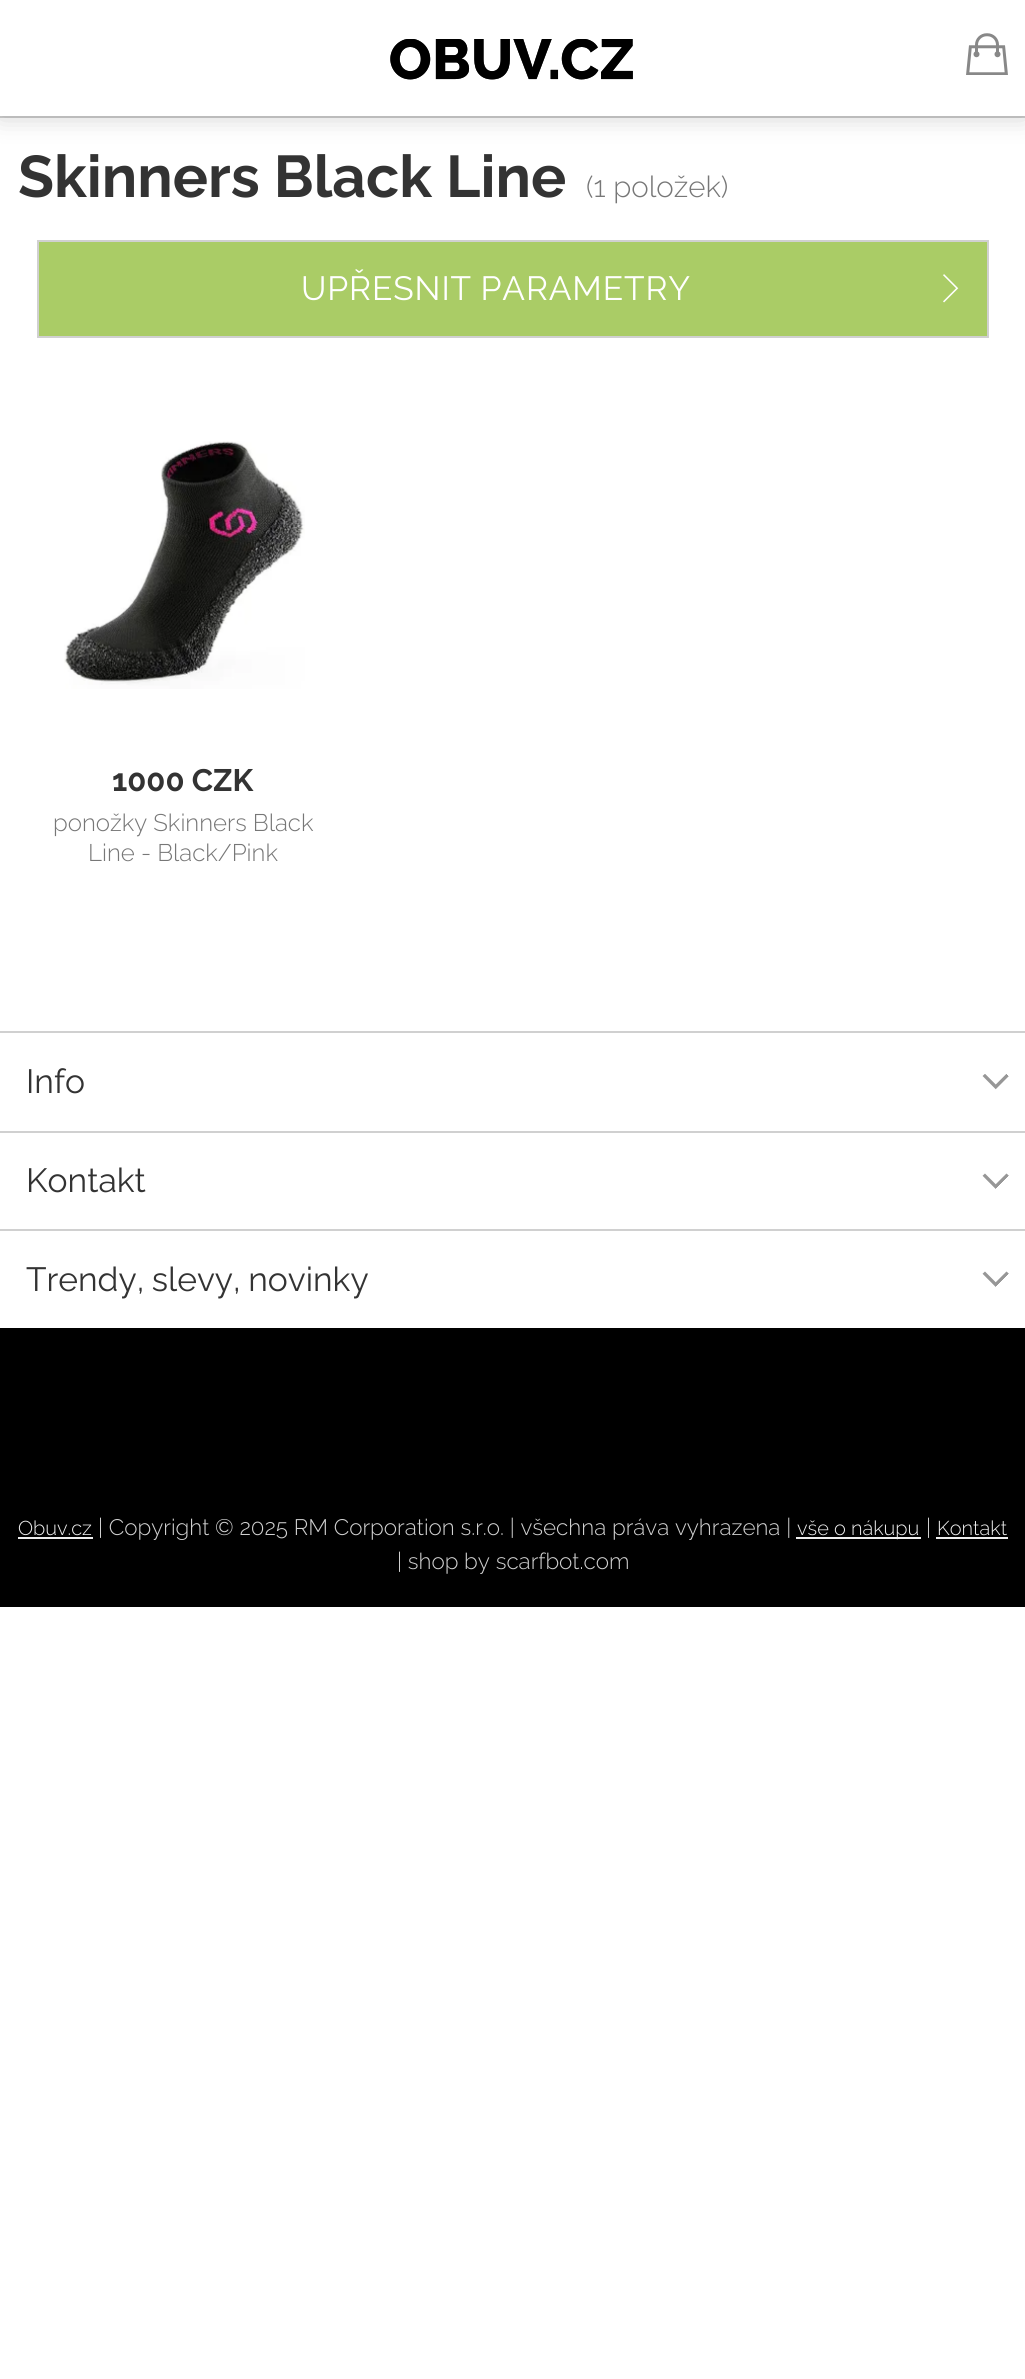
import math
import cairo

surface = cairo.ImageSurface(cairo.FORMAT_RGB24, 1025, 2379)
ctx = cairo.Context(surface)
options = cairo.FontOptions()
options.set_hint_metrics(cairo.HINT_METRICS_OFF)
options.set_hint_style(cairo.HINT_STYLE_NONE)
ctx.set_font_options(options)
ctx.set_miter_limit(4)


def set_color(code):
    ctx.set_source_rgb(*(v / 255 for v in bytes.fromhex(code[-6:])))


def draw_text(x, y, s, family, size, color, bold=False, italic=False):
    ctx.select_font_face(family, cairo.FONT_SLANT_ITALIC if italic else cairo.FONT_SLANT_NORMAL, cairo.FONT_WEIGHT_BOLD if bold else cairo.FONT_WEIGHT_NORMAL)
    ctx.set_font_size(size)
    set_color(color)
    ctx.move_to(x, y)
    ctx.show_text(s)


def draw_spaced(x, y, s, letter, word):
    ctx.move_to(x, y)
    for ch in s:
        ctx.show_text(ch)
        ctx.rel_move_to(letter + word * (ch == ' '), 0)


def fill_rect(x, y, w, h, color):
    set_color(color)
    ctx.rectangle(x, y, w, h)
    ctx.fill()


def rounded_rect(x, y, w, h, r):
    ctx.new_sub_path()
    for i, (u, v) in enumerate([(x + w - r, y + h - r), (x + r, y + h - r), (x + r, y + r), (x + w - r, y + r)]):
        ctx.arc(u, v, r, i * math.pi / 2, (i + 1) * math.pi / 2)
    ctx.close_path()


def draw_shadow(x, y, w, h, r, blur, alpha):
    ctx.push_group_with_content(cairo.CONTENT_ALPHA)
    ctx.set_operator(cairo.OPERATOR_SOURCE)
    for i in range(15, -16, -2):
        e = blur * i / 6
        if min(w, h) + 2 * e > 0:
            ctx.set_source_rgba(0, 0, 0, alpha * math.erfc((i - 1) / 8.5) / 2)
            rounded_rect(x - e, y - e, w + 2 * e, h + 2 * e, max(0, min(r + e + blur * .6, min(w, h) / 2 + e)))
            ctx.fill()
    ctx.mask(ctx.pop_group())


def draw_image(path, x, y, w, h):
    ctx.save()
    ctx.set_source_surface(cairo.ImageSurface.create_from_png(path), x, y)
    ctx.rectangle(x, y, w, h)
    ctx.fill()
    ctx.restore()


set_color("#ffffff")
ctx.paint()
fill_rect(0, 116, 1025, 2, "#d0d0d0")
set_color("#000000")
draw_shadow(0, 0, 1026, 116, 0, 13, 0.2)
fill_rect(0, 0, 1025, 116, "#ffffff")
draw_image("assets/img1.png", 390, 39, 243, 41)
draw_image("assets/img2.png", 966, 33, 42, 42)
draw_text(18, 197, "Skinners Black Line", "Raleway", 58.75, "#333333", bold=True)
draw_text(586, 197, "(1 položek)", "Raleway Light", 29.5, "#777777")
set_color("#aacc66")
ctx.rectangle(38, 241, 950, 96)
ctx.fill_preserve()
set_color("#d0d0d0")
ctx.stroke()
ctx.select_font_face("Raleway")
ctx.set_font_size(33.6)
set_color("#ffffff")
draw_spaced(301, 300, "UPŘESNIT PARAMETRY", 0.9, -1)
ctx.select_font_face("Liberation Sans")
ctx.save()
ctx.translate(963, 293)
ctx.rotate(-135 * math.pi / 180)
draw_spaced(0, 0, "∟", 0.9, 0)
ctx.restore()
draw_image("assets/img3.png", 64, 441, 241, 248)
draw_text(112, 791, "1000 CZK", "Raleway", 31, "#333333", bold=True)
draw_text(53, 831, "ponožky Skinners Black", "Raleway Light", 24, "#777777")
draw_text(88, 861, "Line - Black/Pink", "Raleway Light", 24, "#777777")
fill_rect(0, 1031, 1025, 2, "#d0d0d0")
draw_text(26, 1093, "Info", "Raleway", 33.6, "#333333")
draw_image("assets/img4.png", 982, 1074, 27, 16)
fill_rect(0, 1131, 1025, 2, "#d0d0d0")
draw_text(26, 1192, "Kontakt", "Raleway", 33.6, "#333333")
draw_image("assets/img5.png", 982, 1173, 27, 16)
fill_rect(0, 1229, 1025, 2, "#d0d0d0")
set_color("#333333")
draw_spaced(26, 1291, "Trendy, slevy, novinky", 0, -1)
draw_image("assets/img5.png", 982, 1271, 27, 16)
fill_rect(0, 1328, 1025, 279, "#000000")
draw_text(18, 1535, "Obuv.cz", "Raleway Light", 20, "#eeeeee")
fill_rect(18, 1537, 75, 2, "#eeeeee")
draw_text(98, 1535, "| Copyright © 2025 RM Corporation s.r.o. | všechna práva vyhrazena |", "Raleway Light", 22.4, "#d0d0d0")
fill_rect(796, 1537, 125, 2, "#eeeeee")
draw_text(797, 1535, "vše o nákupu", "Raleway Light", 20, "#eeeeee")
draw_text(926, 1535, "|", "Raleway Light", 22.4, "#d0d0d0")
draw_text(937, 1535, "Kontakt", "Raleway Light", 20, "#eeeeee")
fill_rect(936, 1537, 72, 2, "#eeeeee")
draw_text(397, 1569, "| shop by scarfbot.com", "Raleway Light", 22.4, "#d0d0d0")
surface.write_to_png("output.png")
